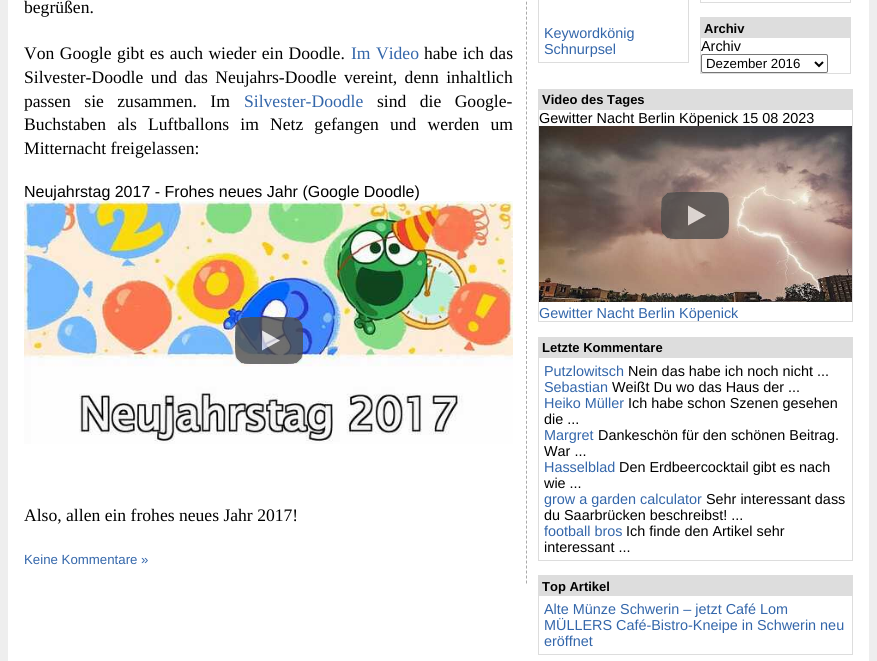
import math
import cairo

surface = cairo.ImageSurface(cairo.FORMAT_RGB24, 877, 661)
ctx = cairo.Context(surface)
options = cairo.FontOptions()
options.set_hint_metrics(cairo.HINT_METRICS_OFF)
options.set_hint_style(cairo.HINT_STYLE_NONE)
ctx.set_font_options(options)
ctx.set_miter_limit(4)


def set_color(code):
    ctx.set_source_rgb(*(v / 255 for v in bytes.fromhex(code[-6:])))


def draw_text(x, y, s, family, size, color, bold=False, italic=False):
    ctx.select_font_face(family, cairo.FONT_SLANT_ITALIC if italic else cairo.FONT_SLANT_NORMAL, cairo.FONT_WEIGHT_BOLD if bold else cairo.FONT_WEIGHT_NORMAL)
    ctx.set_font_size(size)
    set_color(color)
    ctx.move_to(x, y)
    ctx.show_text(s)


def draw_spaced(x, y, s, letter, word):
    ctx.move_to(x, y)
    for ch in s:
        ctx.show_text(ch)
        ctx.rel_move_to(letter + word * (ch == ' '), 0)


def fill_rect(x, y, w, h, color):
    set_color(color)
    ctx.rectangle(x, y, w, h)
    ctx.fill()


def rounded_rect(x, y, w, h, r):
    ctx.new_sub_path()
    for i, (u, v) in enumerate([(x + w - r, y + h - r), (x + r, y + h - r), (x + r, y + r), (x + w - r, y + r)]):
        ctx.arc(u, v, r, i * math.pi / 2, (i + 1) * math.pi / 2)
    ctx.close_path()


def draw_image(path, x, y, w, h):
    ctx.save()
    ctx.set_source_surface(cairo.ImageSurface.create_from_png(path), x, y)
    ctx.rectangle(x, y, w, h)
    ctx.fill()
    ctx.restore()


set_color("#eeeeee")
ctx.paint()
fill_rect(8, 0, 861, 661, "#ffffff")
ctx.new_path()
ctx.move_to(526.5, -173)
ctx.line_to(526.5, 584)
set_color("#aaaaaa")
ctx.set_line_width(1)
ctx.set_dash([3, 1.99])
ctx.stroke()
draw_text(24, 13, "begrüßen.", "Liberation Serif", 17.6, "#000000")
draw_spaced(24, 59, "Von Google gibt es auch wieder ein Doodle.", 0, 1)
set_color("#3366aa")
draw_spaced(351, 59, "Im Video", 0, 1)
set_color("#000000")
draw_spaced(424, 59, "habe ich das", 0, 1)
draw_spaced(24, 83, "Silvester-Doodle und das Neujahrs-Doodle vereint, denn inhaltlich", 0, 3)
draw_spaced(24, 107, "passen sie zusammen. Im", 0, 9)
draw_text(244, 107, "Silvester-Doodle", "Liberation Serif", 17.6, "#3366aa")
set_color("#000000")
draw_spaced(377, 107, "sind die Google-", 0, 9)
draw_spaced(24, 130, "Buchstaben als Luftballons im Netz gefangen und werden um", 0, 6.75)
draw_text(24, 154, "Mitternacht freigelassen:", "Liberation Serif", 17.6, "#000000")
draw_text(24, 197, "Neujahrstag 2017 - Frohes neues Jahr (Google Doodle)", "Liberation Sans", 16, "#000000")
draw_image("assets/img1.png", 24, 201, 489, 243)
draw_image("assets/img2.png", 235, 317, 68, 47)
draw_text(24, 521, "Also, allen ein frohes neues Jahr 2017!", "Liberation Serif", 17.6, "#000000")
draw_text(24, 564, "Keine Kommentare »", "Liberation Sans", 13.25, "#3366aa")
ctx.rectangle(538.5, -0.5, 150, 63)
set_color("#dddddd")
ctx.set_dash([])
ctx.stroke()
draw_text(544, 38, "Keywordkönig", "Liberation Sans", 14.4, "#3366aa")
draw_text(544, 54, "Schnurpsel", "Liberation Sans", 14.4, "#3366aa")
ctx.rectangle(700.5, -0.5, 150, 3)
set_color("#dddddd")
ctx.stroke()
ctx.rectangle(700.5, 17.5, 150, 56)
ctx.stroke()
fill_rect(701, 18, 149, 20, "#dddddd")
draw_text(704, 33, "Archiv", "Liberation Sans", 13, "#000000", bold=True)
draw_text(701, 51, "Archiv", "Liberation Sans", 14.4, "#000000")
rounded_rect(701.5, 54.5, 126, 18, 1.5)
set_color("#767676")
ctx.stroke()
ctx.new_path()
ctx.move_to(815, 62)
ctx.line_to(819, 66)
ctx.line_to(823, 62)
set_color("#000000")
ctx.set_line_width(2)
ctx.stroke()
draw_text(706, 68, "Dezember 2016", "Liberation Sans", 13.25, "#000000")
ctx.rectangle(538.5, 89.5, 314, 232)
set_color("#dddddd")
ctx.set_line_width(1)
ctx.stroke()
fill_rect(539, 90, 313, 20, "#dddddd")
draw_text(542, 104, "Video des Tages", "Liberation Sans", 13, "#000000", bold=True)
draw_text(539, 123, "Gewitter Nacht Berlin Köpenick 15 08 2023", "Liberation Sans", 14.4, "#000000")
draw_image("assets/img3.png", 539, 126, 313, 176)
draw_image("assets/img4.png", 661, 192, 68, 47)
draw_text(539, 318, "Gewitter Nacht Berlin Köpenick", "Liberation Sans", 14.4, "#3366aa")
ctx.rectangle(538.5, 337.5, 314, 223)
set_color("#dddddd")
ctx.stroke()
fill_rect(539, 338, 313, 20, "#dddddd")
draw_text(542, 352, "Letzte Kommentare", "Liberation Sans", 13, "#000000", bold=True)
draw_text(544, 376, "Putzlowitsch", "Liberation Sans", 14.4, "#3366aa")
draw_text(628, 376, "Nein das habe ich noch nicht ...", "Liberation Sans", 14.4, "#000000")
draw_text(544, 392, "Sebastian", "Liberation Sans", 14.4, "#3366aa")
draw_text(612, 392, "Weißt Du wo das Haus der ...", "Liberation Sans", 14.4, "#000000")
draw_text(544, 408, "Heiko Müller", "Liberation Sans", 14.4, "#3366aa")
draw_text(628, 408, "Ich habe schon Szenen gesehen", "Liberation Sans", 14.4, "#000000")
draw_text(544, 424, "die ...", "Liberation Sans", 14.4, "#000000")
draw_text(544, 440, "Margret", "Liberation Sans", 14.4, "#3366aa")
draw_text(598, 440, "Dankeschön für den schönen Beitrag.", "Liberation Sans", 14.4, "#000000")
draw_text(544, 456, "War ...", "Liberation Sans", 14.4, "#000000")
draw_text(544, 472, "Hasselblad", "Liberation Sans", 14.4, "#3366aa")
draw_text(619, 472, "Den Erdbeercocktail gibt es nach", "Liberation Sans", 14.4, "#000000")
draw_text(544, 488, "wie ...", "Liberation Sans", 14.4, "#000000")
draw_text(544, 504, "grow a garden calculator", "Liberation Sans", 14.4, "#3366aa")
draw_text(706, 504, "Sehr interessant dass", "Liberation Sans", 14.4, "#000000")
draw_text(544, 520, "du Saarbrücken beschreibst! ...", "Liberation Sans", 14.4, "#000000")
draw_text(544, 536, "football bros", "Liberation Sans", 14.4, "#3366aa")
draw_text(626, 536, "Ich finde den Artikel sehr", "Liberation Sans", 14.4, "#000000")
draw_text(544, 552, "interessant ...", "Liberation Sans", 14.4, "#000000")
ctx.rectangle(538.5, 575.5, 314, 79)
set_color("#dddddd")
ctx.stroke()
fill_rect(539, 576, 313, 20, "#dddddd")
draw_text(542, 591, "Top Artikel", "Liberation Sans", 13, "#000000", bold=True)
draw_text(544, 614, "Alte Münze Schwerin – jetzt Café Lom", "Liberation Sans", 14.4, "#3366aa")
draw_text(544, 630, "MÜLLERS Café-Bistro-Kneipe in Schwerin neu", "Liberation Sans", 14.4, "#3366aa")
draw_text(544, 646, "eröffnet", "Liberation Sans", 14.4, "#3366aa")
surface.write_to_png("output.png")
